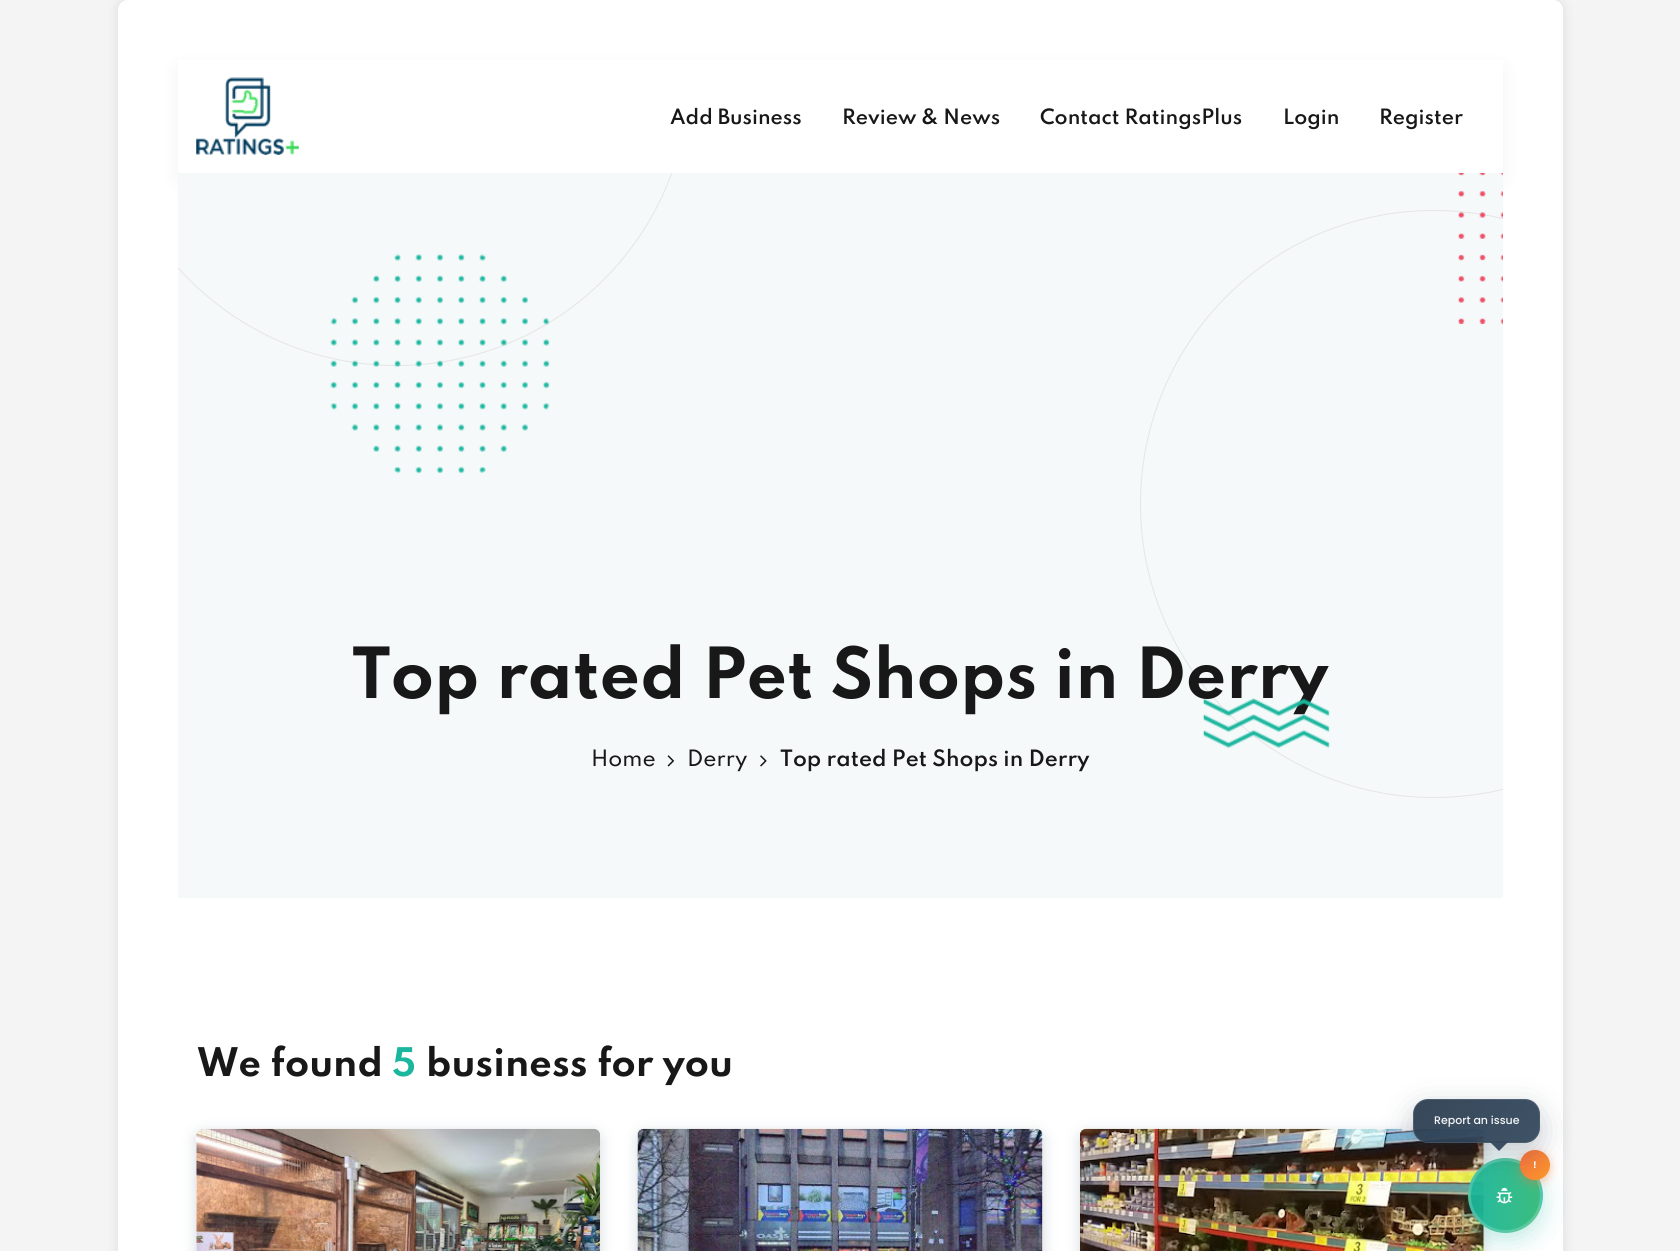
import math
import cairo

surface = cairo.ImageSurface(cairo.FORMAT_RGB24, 1680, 1251)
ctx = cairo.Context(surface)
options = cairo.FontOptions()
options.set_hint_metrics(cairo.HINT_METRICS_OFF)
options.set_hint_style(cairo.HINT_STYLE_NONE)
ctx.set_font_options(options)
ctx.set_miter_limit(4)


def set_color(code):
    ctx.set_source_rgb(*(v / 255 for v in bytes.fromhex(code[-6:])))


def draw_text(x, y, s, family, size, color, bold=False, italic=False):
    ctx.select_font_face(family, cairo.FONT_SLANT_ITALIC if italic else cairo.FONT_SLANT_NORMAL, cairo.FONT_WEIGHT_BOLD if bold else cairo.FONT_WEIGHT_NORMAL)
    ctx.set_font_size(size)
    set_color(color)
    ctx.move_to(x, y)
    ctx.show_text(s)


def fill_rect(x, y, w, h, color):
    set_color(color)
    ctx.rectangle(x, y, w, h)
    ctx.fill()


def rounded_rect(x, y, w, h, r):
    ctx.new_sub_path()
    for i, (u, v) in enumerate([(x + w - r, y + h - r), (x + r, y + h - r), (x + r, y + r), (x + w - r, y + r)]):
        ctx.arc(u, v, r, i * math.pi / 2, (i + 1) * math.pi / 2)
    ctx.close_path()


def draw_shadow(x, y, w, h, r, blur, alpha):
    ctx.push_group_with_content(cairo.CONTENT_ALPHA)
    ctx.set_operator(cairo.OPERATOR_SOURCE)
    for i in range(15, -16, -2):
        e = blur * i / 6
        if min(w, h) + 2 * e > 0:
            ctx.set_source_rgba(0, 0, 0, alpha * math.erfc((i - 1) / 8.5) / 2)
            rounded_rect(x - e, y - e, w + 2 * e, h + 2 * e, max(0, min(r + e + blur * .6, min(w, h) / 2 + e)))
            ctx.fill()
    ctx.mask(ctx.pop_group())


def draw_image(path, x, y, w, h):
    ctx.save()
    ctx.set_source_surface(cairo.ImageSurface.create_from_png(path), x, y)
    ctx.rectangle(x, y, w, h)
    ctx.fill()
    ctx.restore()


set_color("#f4f4f4")
ctx.paint()
set_color("#000000")
draw_shadow(118, 0, 1445, 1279, 10, 6, 0.1)
set_color("#ffffff")
rounded_rect(118, 0, 1445, 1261, 10)
ctx.fill()
set_color("#000000")
draw_shadow(178, 68, 1325, 112, 0, 9.5, 0.05)
fill_rect(178, 60, 1325, 113, "#ffffff")
draw_image("assets/img1.png", 196, 77, 103, 78)
draw_text(670, 124, "Add Business", "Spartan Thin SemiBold", 18.75, "#181818")
draw_text(842, 124, "Review & News", "Spartan Thin SemiBold", 18.75, "#181818")
draw_text(1040, 124, "Contact RatingsPlus", "Spartan Thin SemiBold", 18.75, "#181818")
draw_text(1283, 124, "Login", "Spartan Thin SemiBold", 18.75, "#181818")
draw_text(1379, 124, "Register", "Spartan Thin SemiBold", 18.75, "#181818")
fill_rect(178, 173, 1325, 725, "#f5f9fa")
ctx.save()
ctx.rectangle(178, 173, 1325, 725)
ctx.clip()
ctx.arc(396.5, 72.5, 293, 0, 2 * math.pi)
set_color("#e5e5e5")
ctx.set_line_width(1)
ctx.stroke()
ctx.arc(1434, 504, 293.5, 0, 2 * math.pi)
ctx.stroke()
ctx.restore()
draw_image("assets/img2.png", 1458, 173, 45, 151)
draw_image("assets/img3.png", 330, 254, 220, 220)
draw_text(352, 698, "Top rated Pet Shops in Derry", "Spartan Thin", 62.5, "#181818", bold=True)
draw_image("assets/img4.png", 1203, 698, 127, 50)
draw_text(591, 766, "Home", "Spartan Thin Medium", 20, "#181818")
draw_image("assets/img5.png", 667, 755, 8, 12)
draw_text(687, 766, "Derry", "Spartan Thin Medium", 20, "#181818")
draw_image("assets/img6.png", 760, 755, 7, 12)
draw_text(780, 766, "Top rated Pet Shops in Derry", "Spartan Thin SemiBold", 20, "#181818")
draw_text(197, 1076, "We found", "Spartan Thin", 35, "#181818", bold=True)
draw_text(392, 1076, "5", "Spartan Thin", 35, "#1ab69d", bold=True)
draw_text(426, 1076, "business for you", "Spartan Thin", 35, "#181818", bold=True)
set_color("#a1acb8")
draw_shadow(196, 1133, 404, 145, 6, 7, 0.45)
set_color("#ffffff")
rounded_rect(196, 1129, 404, 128, 6)
ctx.fill()
draw_image("assets/img7.png", 196, 1128, 404, 123)
set_color("#a1acb8")
draw_shadow(638, 1133, 405, 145, 6, 7, 0.45)
set_color("#ffffff")
rounded_rect(638, 1129, 405, 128, 6)
ctx.fill()
draw_image("assets/img8.png", 637, 1128, 406, 123)
set_color("#a1acb8")
draw_shadow(1080, 1133, 404, 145, 6, 7, 0.45)
set_color("#ffffff")
rounded_rect(1080, 1129, 404, 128, 6)
ctx.fill()
draw_image("assets/img9.png", 1080, 1128, 404, 123)
ctx.save()
ctx.set_fill_rule(cairo.FILL_RULE_EVEN_ODD)
ctx.new_path()
ctx.move_to(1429, 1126)
ctx.line_to(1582, 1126)
ctx.line_to(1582, 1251)
ctx.line_to(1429, 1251)
ctx.close_path()
ctx.move_to(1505.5, 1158)
ctx.curve_to(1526, 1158, 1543, 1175, 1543, 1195.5)
ctx.curve_to(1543, 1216, 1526, 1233, 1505.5, 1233)
ctx.curve_to(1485, 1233, 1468, 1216, 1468, 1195.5)
ctx.curve_to(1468, 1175, 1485, 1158, 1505.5, 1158)
ctx.close_path()
ctx.clip()
set_color("#1ab69d")
draw_shadow(1468, 1165, 75, 75, 37.5, 12.5, 0.28)
ctx.restore()
ctx.save()
rounded_rect(1468, 1158, 75, 75, 37.5)
ctx.clip()
gradient = cairo.LinearGradient(1470, 1195, 1400, 1195)
gradient.add_color_stop_rgba(0, 0.192, 0.725, 0.471, 0.95)
gradient.add_color_stop_rgba(1, 0.102, 0.714, 0.616, 0.95)
ctx.set_source(gradient)
ctx.rectangle(1468, 1183, 2, 25)
ctx.fill()
gradient = cairo.LinearGradient(1540, 1195, 1470, 1195)
gradient.add_color_stop_rgba(0, 0.192, 0.725, 0.471, 0.95)
gradient.add_color_stop_rgba(1, 0.102, 0.714, 0.616, 0.95)
ctx.set_source(gradient)
ctx.rectangle(1470, 1158, 70, 75)
ctx.fill()
gradient = cairo.LinearGradient(1610, 1195, 1540, 1195)
gradient.add_color_stop_rgba(0, 0.231, 0.741, 0.498, 1)
gradient.add_color_stop_rgba(1, 0.145, 0.729, 0.635, 1)
ctx.set_source(gradient)
ctx.rectangle(1540, 1181, 3, 29)
ctx.fill()
ctx.restore()
ctx.arc(1505.5, 1195.5, 36, 0, 2 * math.pi)
ctx.set_source_rgba(1, 1, 1, 0.19)
ctx.set_line_width(3)
ctx.stroke()
draw_image("assets/img10.png", 1496, 1187, 17, 17)
set_color("#ff723f")
draw_shadow(1520, 1153, 30, 30, 15, 5, 0.4)
gradient = cairo.LinearGradient(1520, 1150, 1550, 1180)
gradient.add_color_stop_rgba(0, 1, 0.447, 0.247, 1)
gradient.add_color_stop_rgba(1, 0.969, 0.596, 0.161, 1)
ctx.set_source(gradient)
ctx.arc(1535, 1165, 15, 0, 2 * math.pi)
ctx.fill()
ctx.save()
ctx.set_fill_rule(cairo.FILL_RULE_EVEN_ODD)
ctx.new_path()
ctx.move_to(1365, 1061)
ctx.line_to(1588, 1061)
ctx.line_to(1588, 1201)
ctx.line_to(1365, 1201)
ctx.close_path()
ctx.move_to(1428, 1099)
ctx.line_to(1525, 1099)
ctx.curve_to(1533.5, 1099, 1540, 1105.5, 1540, 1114)
ctx.line_to(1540, 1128)
ctx.curve_to(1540, 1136.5, 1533.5, 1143, 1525, 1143)
ctx.line_to(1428, 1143)
ctx.curve_to(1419.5, 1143, 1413, 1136.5, 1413, 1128)
ctx.line_to(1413, 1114)
ctx.curve_to(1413, 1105.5, 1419.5, 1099, 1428, 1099)
ctx.close_path()
ctx.clip()
set_color("#2c3e50")
draw_shadow(1413, 1109, 127, 44, 15, 15.5, 0.28)
ctx.restore()
ctx.save()
rounded_rect(1413, 1099, 127, 44, 15)
ctx.clip()
gradient = cairo.LinearGradient(1435, 1038, 1518, 1121)
gradient.add_color_stop_rgba(0, 0.216, 0.282, 0.349, 1)
gradient.add_color_stop_rgba(1, 0.243, 0.322, 0.4, 1)
ctx.set_source(gradient)
ctx.rectangle(1423, 1099, 107, 1)
ctx.fill()
gradient = cairo.LinearGradient(1310, 1079, 1393, 1162)
gradient.add_color_stop_rgba(0, 0.173, 0.243, 0.314, 0.95)
gradient.add_color_stop_rgba(1, 0.204, 0.286, 0.369, 0.95)
ctx.set_source(gradient)
ctx.rectangle(1413, 1109, 1, 32)
ctx.fill()
gradient = cairo.LinearGradient(1435, 1079, 1518, 1162)
gradient.add_color_stop_rgba(0, 0.173, 0.243, 0.314, 0.95)
gradient.add_color_stop_rgba(1, 0.204, 0.286, 0.369, 0.95)
ctx.set_source(gradient)
ctx.rectangle(1414, 1100, 125, 41)
ctx.fill()
gradient = cairo.LinearGradient(1560, 1079, 1643, 1162)
gradient.add_color_stop_rgba(0, 0.216, 0.282, 0.349, 1)
gradient.add_color_stop_rgba(1, 0.243, 0.322, 0.4, 1)
ctx.set_source(gradient)
ctx.rectangle(1539, 1109, 1, 32)
ctx.fill()
gradient = cairo.LinearGradient(1435, 1120, 1518, 1203)
gradient.add_color_stop_rgba(0, 0.173, 0.243, 0.314, 0.95)
gradient.add_color_stop_rgba(1, 0.204, 0.286, 0.369, 0.95)
ctx.set_source(gradient)
ctx.rectangle(1414, 1141, 125, 2)
ctx.fill()
ctx.restore()
rounded_rect(1413.5, 1099.5, 126, 43, 14.5)
ctx.set_source_rgba(1, 1, 1, 0.1)
ctx.set_line_width(1)
ctx.stroke()
draw_text(1434, 1124, "Report an issue", "Poppins Medium", 11, "#f5f6f7")
ctx.set_source_rgba(0.204, 0.286, 0.369, 0.95)
ctx.new_path()
ctx.move_to(1489, 1141)
ctx.line_to(1509, 1141)
ctx.line_to(1499, 1151)
ctx.close_path()
ctx.fill()
draw_text(1533, 1168, "!", "Poppins", 9, "#ffffff", bold=True)
surface.write_to_png("output.png")
